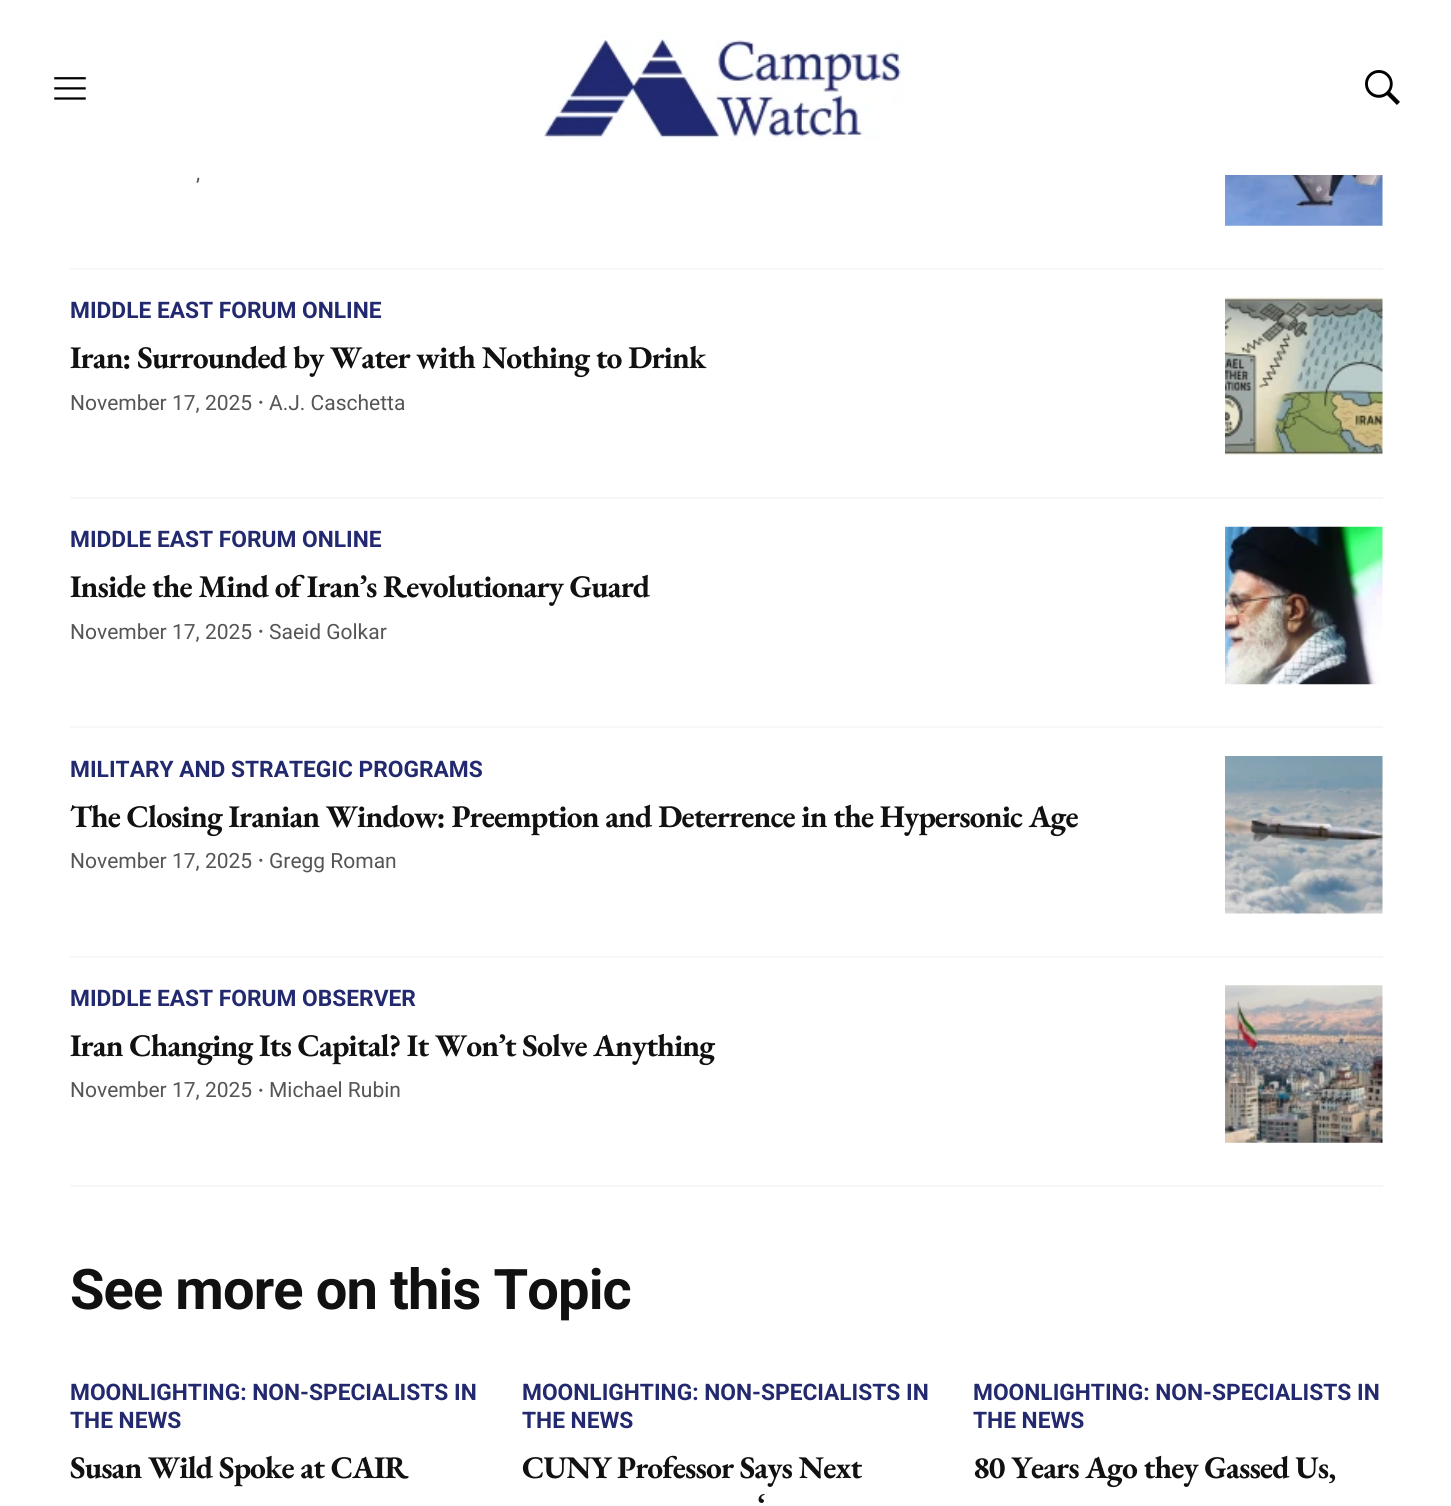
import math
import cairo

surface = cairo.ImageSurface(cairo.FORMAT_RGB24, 1451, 1506)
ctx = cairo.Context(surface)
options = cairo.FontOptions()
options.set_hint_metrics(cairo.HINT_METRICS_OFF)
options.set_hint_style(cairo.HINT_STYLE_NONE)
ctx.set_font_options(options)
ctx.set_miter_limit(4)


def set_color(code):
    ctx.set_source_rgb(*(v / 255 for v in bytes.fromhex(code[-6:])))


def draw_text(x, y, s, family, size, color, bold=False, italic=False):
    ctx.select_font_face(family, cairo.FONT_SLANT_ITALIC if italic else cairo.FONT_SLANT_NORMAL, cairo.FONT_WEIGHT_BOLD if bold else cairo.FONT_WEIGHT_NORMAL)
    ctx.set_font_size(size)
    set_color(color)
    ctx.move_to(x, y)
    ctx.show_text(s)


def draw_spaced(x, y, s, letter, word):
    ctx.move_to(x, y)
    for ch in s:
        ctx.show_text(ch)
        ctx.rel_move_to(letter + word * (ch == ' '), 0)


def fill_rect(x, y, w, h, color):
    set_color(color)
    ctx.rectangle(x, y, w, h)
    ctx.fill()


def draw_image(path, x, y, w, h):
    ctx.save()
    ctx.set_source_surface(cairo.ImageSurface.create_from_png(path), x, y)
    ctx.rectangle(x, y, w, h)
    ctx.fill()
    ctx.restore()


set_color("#ffffff")
ctx.paint()
draw_image("assets/img1.png", 54, 77, 32, 23)
draw_image("assets/img2.png", 544, 30, 359, 111)
draw_image("assets/img3.png", 1365, 70, 35, 35)
fill_rect(70, 268, 1313, 2, "#f7f7f7")
draw_text(196, 180, ",", "Roboto", 21, "#555555")
draw_image("assets/img4.png", 1225, 175, 158, 51)
fill_rect(70, 497, 1313, 2, "#f7f7f7")
draw_text(70, 318, "MIDDLE EAST FORUM ONLINE", "Roboto", 22.75, "#23296e", bold=True)
ctx.select_font_face("EB Garamond", cairo.FONT_SLANT_NORMAL, cairo.FONT_WEIGHT_BOLD)
ctx.set_font_size(31.5)
set_color("#111111")
draw_spaced(70, 368, "Iran: Surrounded by Water with Nothing to Drink", -0.88, 0)
draw_text(70, 410, "November 17, 2025", "Roboto", 21, "#555555")
draw_text(258, 408, "·", "EB Garamond", 28, "#555555")
draw_text(269, 410, "A.J. Caschetta", "Roboto", 21, "#555555")
draw_image("assets/img5.png", 1225, 297, 158, 158)
fill_rect(70, 726, 1313, 2, "#f7f7f7")
draw_text(70, 547, "MIDDLE EAST FORUM ONLINE", "Roboto", 22.75, "#23296e", bold=True)
ctx.select_font_face("EB Garamond", cairo.FONT_SLANT_NORMAL, cairo.FONT_WEIGHT_BOLD)
ctx.set_font_size(31.5)
set_color("#111111")
draw_spaced(70, 597, "Inside the Mind of Iran’s Revolutionary Guard", -0.88, 0)
draw_text(70, 639, "November 17, 2025", "Roboto", 21, "#555555")
draw_text(258, 637, "·", "EB Garamond", 28, "#555555")
draw_text(269, 639, "Saeid Golkar", "Roboto", 21, "#555555")
draw_image("assets/img6.png", 1225, 526, 158, 159)
fill_rect(70, 956, 1313, 2, "#f7f7f7")
draw_text(70, 777, "MILITARY AND STRATEGIC PROGRAMS", "Roboto", 22.75, "#23296e", bold=True)
ctx.select_font_face("EB Garamond", cairo.FONT_SLANT_NORMAL, cairo.FONT_WEIGHT_BOLD)
ctx.set_font_size(31.5)
set_color("#111111")
draw_spaced(70, 827, "The Closing Iranian Window: Preemption and Deterrence in the Hypersonic Age", -0.88, 0)
draw_text(70, 868, "November 17, 2025", "Roboto", 21, "#555555")
draw_text(258, 866, "·", "EB Garamond", 28, "#555555")
draw_text(269, 868, "Gregg Roman", "Roboto", 21, "#555555")
draw_image("assets/img7.png", 1225, 756, 158, 158)
fill_rect(70, 1185, 1313, 2, "#f7f7f7")
draw_text(70, 1006, "MIDDLE EAST FORUM OBSERVER", "Roboto", 22.75, "#23296e", bold=True)
ctx.select_font_face("EB Garamond", cairo.FONT_SLANT_NORMAL, cairo.FONT_WEIGHT_BOLD)
ctx.set_font_size(31.5)
set_color("#111111")
draw_spaced(70, 1056, "Iran Changing Its Capital? It Won’t Solve Anything", -0.88, 0)
draw_text(70, 1097, "November 17, 2025", "Roboto", 21, "#555555")
draw_text(258, 1096, "·", "EB Garamond", 28, "#555555")
draw_text(269, 1097, "Michael Rubin", "Roboto", 21, "#555555")
draw_image("assets/img8.png", 1225, 985, 158, 158)
ctx.select_font_face("Roboto", cairo.FONT_SLANT_NORMAL, cairo.FONT_WEIGHT_BOLD)
ctx.set_font_size(56)
set_color("#111111")
draw_spaced(70, 1309, "See more on this Topic", -0.88, 0)
draw_text(70, 1400, "MOONLIGHTING: NON-SPECIALISTS IN", "Roboto", 22.75, "#23296e", bold=True)
draw_text(70, 1428, "THE NEWS", "Roboto", 22.75, "#23296e", bold=True)
ctx.select_font_face("EB Garamond", cairo.FONT_SLANT_NORMAL, cairo.FONT_WEIGHT_BOLD)
ctx.set_font_size(31.5)
set_color("#111111")
draw_spaced(70, 1478, "Susan Wild Spoke at CAIR", -0.88, 0)
draw_text(522, 1400, "MOONLIGHTING: NON-SPECIALISTS IN", "Roboto", 22.75, "#23296e", bold=True)
draw_text(522, 1428, "THE NEWS", "Roboto", 22.75, "#23296e", bold=True)
ctx.select_font_face("EB Garamond", cairo.FONT_SLANT_NORMAL, cairo.FONT_WEIGHT_BOLD)
ctx.set_font_size(31.5)
set_color("#111111")
draw_spaced(522, 1478, "CUNY Professor Says Next", -0.88, 0)
draw_spaced(758, 1516, "‘", -0.88, 0)
draw_text(973, 1400, "MOONLIGHTING: NON-SPECIALISTS IN", "Roboto", 22.75, "#23296e", bold=True)
draw_text(973, 1428, "THE NEWS", "Roboto", 22.75, "#23296e", bold=True)
ctx.select_font_face("EB Garamond", cairo.FONT_SLANT_NORMAL, cairo.FONT_WEIGHT_BOLD)
ctx.set_font_size(31.5)
set_color("#111111")
draw_spaced(973, 1478, "80 Years Ago they Gassed Us,", -0.88, 0)
surface.write_to_png("output.png")
